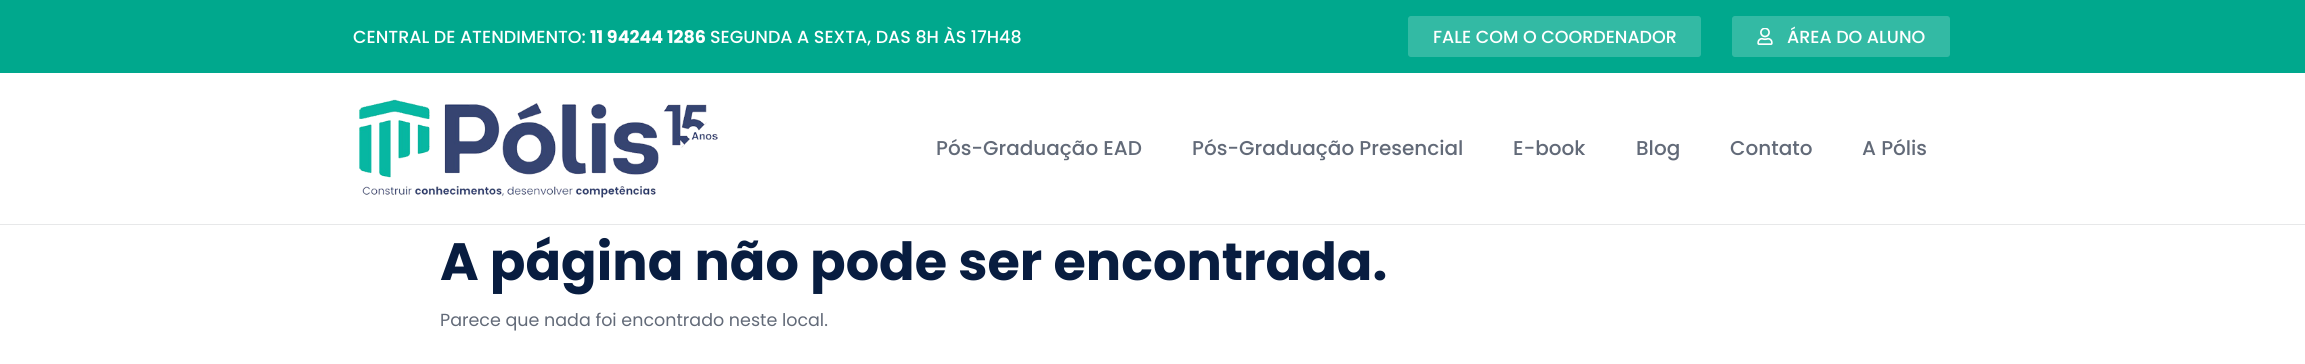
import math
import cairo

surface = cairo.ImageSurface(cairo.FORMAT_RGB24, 2305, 364)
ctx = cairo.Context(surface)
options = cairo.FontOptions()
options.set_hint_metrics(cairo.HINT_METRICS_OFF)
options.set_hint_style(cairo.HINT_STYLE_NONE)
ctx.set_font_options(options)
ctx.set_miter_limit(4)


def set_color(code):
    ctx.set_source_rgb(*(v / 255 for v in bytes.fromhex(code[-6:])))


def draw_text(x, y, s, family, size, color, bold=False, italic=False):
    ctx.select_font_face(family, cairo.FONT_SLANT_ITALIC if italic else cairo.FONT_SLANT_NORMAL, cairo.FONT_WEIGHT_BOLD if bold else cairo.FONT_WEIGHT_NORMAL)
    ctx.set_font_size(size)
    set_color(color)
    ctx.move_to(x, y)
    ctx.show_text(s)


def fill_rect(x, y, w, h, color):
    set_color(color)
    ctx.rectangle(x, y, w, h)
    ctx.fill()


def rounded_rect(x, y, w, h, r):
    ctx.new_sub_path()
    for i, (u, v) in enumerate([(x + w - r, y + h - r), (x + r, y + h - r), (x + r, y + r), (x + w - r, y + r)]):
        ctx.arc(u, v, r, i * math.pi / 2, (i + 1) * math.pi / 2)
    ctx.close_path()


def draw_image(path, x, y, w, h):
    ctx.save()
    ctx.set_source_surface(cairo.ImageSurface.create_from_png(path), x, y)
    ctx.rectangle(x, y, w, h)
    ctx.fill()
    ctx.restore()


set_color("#ffffff")
ctx.paint()
fill_rect(0, 0, 2305, 73, "#00a88d")
draw_text(353, 43, "CENTRAL DE ATENDIMENTO:", "Poppins Medium", 17.5, "#ffffff")
draw_text(590, 43, "11 94244 1286", "Poppins", 17.5, "#ffffff", bold=True)
draw_text(710, 43, "SEGUNDA A SEXTA, DAS 8H ÀS 17H48", "Poppins Medium", 17.5, "#ffffff")
set_color("#33baa4")
rounded_rect(1406.5, 14.5, 296, 44, 4.5)
ctx.fill_preserve()
set_color("#00a88d")
ctx.set_line_width(3)
ctx.stroke()
draw_text(1433, 43, "FALE COM O COORDENADOR", "Poppins Medium", 17.5, "#ffffff")
set_color("#33baa4")
rounded_rect(1730.5, 14.5, 221, 44, 4.5)
ctx.fill_preserve()
set_color("#00a88d")
ctx.stroke()
draw_image("assets/img1.png", 1757, 28, 16, 17)
draw_text(1787, 43, "ÁREA DO ALUNO", "Poppins Medium", 17.5, "#ffffff")
fill_rect(0, 224, 2305, 1, "#e7e8e9")
draw_image("assets/img2.png", 359, 99, 359, 99)
draw_text(936, 155, "Pós-Graduação EAD", "Poppins Medium", 20, "#626a78")
draw_text(1192, 155, "Pós-Graduação Presencial", "Poppins Medium", 20, "#626a78")
draw_text(1513, 155, "E-book", "Poppins Medium", 20, "#626a78")
draw_text(1636, 155, "Blog", "Poppins Medium", 20, "#626a78")
draw_text(1730, 155, "Contato", "Poppins Medium", 20, "#626a78")
draw_text(1862, 155, "A Pólis", "Poppins Medium", 20, "#626a78")
draw_text(440, 280, "A página não pode ser encontrada.", "Poppins", 52.5, "#081d40", bold=True)
draw_text(440, 326, "Parece que nada foi encontrado neste local.", "Poppins", 17.5, "#626a78")
surface.write_to_png("output.png")
